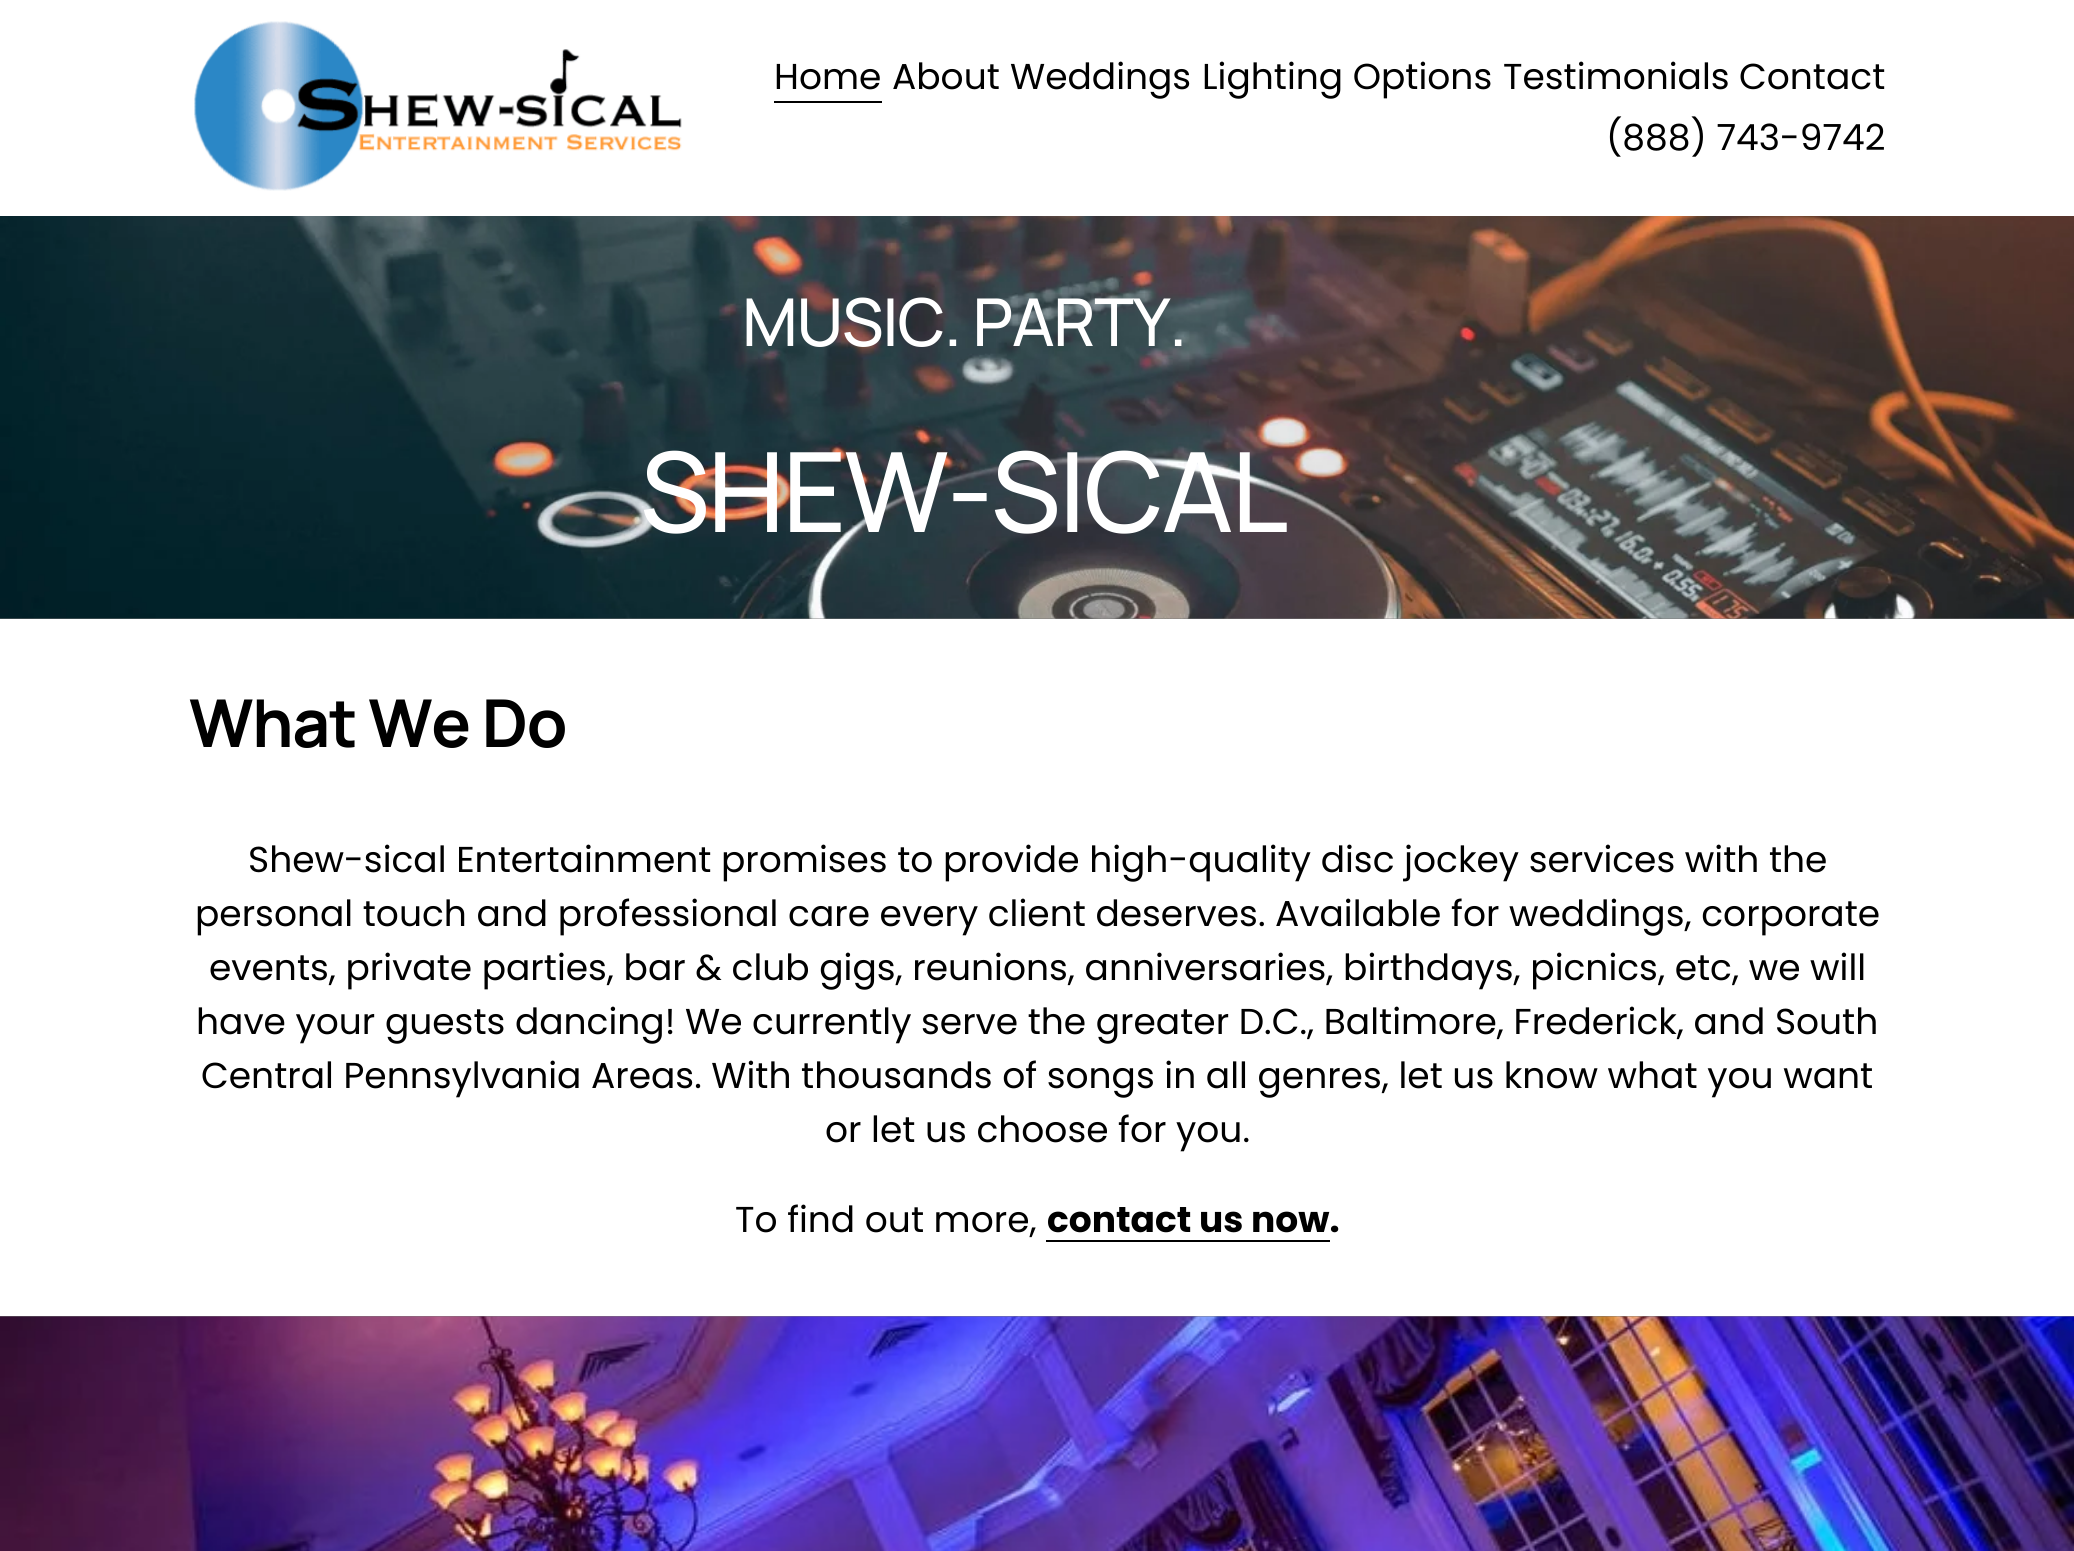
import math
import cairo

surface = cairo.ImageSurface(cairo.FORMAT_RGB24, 2074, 1551)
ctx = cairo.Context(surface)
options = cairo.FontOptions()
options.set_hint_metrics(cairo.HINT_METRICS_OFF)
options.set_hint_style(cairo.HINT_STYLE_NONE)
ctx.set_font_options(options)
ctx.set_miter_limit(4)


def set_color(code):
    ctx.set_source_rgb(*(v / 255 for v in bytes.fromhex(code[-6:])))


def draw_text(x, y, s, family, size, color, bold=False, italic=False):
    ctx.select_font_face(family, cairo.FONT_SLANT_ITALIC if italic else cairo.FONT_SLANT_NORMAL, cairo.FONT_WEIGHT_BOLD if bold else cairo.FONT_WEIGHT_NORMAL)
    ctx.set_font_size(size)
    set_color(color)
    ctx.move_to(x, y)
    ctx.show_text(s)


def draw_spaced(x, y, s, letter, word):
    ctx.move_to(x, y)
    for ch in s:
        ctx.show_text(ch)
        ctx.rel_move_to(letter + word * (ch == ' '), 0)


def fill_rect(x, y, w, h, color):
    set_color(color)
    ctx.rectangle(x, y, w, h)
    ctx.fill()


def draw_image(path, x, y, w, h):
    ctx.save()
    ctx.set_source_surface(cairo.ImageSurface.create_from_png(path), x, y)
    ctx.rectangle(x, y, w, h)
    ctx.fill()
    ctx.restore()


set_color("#ffffff")
ctx.paint()
draw_image("assets/img1.png", 194, 21, 488, 170)
fill_rect(774, 101, 108, 2, "#000000")
draw_text(774, 89, "Home", "Poppins", 36, "#000000")
draw_text(892, 89, "About", "Poppins", 36, "#000000")
draw_text(1010, 89, "Weddings", "Poppins", 36, "#000000")
draw_text(1202, 89, "Lighting Options", "Poppins", 36, "#000000")
draw_text(1503, 89, "Testimonials", "Poppins", 36, "#000000")
draw_text(1739, 89, "Contact", "Poppins", 36, "#000000")
draw_text(1606, 150, "(888) 743-9742", "Poppins", 36, "#000000")
fill_rect(0, 618, 2074, 1, "#797979")
draw_image("assets/img2.png", 0, 216, 2074, 403)
ctx.select_font_face("Manrope Medium")
ctx.set_font_size(66)
set_color("#ffffff")
draw_spaced(742, 346, "MUSIC. PARTY.", -1.25, 0)
ctx.set_font_size(110.75)
draw_spaced(640, 532, "SHEW-SICAL", -2.25, 0)
ctx.select_font_face("Manrope", cairo.FONT_SLANT_NORMAL, cairo.FONT_WEIGHT_BOLD)
ctx.set_font_size(66)
set_color("#000000")
draw_spaced(189, 747, "What We Do", -1.25, 0)
draw_text(248, 872, "Shew-sical Entertainment promises to provide high-quality disc jockey services with the", "Poppins", 36, "#000000")
draw_text(195, 926, "personal touch and professional care every client deserves. Available for weddings, corporate", "Poppins", 36, "#000000")
draw_text(209, 980, "events, private parties, bar & club gigs, reunions, anniversaries, birthdays, picnics, etc, we will", "Poppins", 36, "#000000")
draw_text(196, 1034, "have your guests dancing! We currently serve the greater D.C., Baltimore, Frederick, and South", "Poppins", 36, "#000000")
draw_text(201, 1088, "Central Pennsylvania Areas. With thousands of songs in all genres, let us know what you want", "Poppins", 36, "#000000")
draw_text(825, 1142, "or let us choose for you.", "Poppins", 36, "#000000")
draw_text(735, 1232, "To find out more,", "Poppins", 36, "#000000")
draw_text(1047, 1232, "contact us now.", "Poppins", 36, "#000000", bold=True)
fill_rect(1046, 1240, 284, 2, "#000000")
fill_rect(0, 1316, 2074, 1, "#797979")
draw_image("assets/img3.png", 0, 1316, 2074, 235)
surface.write_to_png("output.png")
